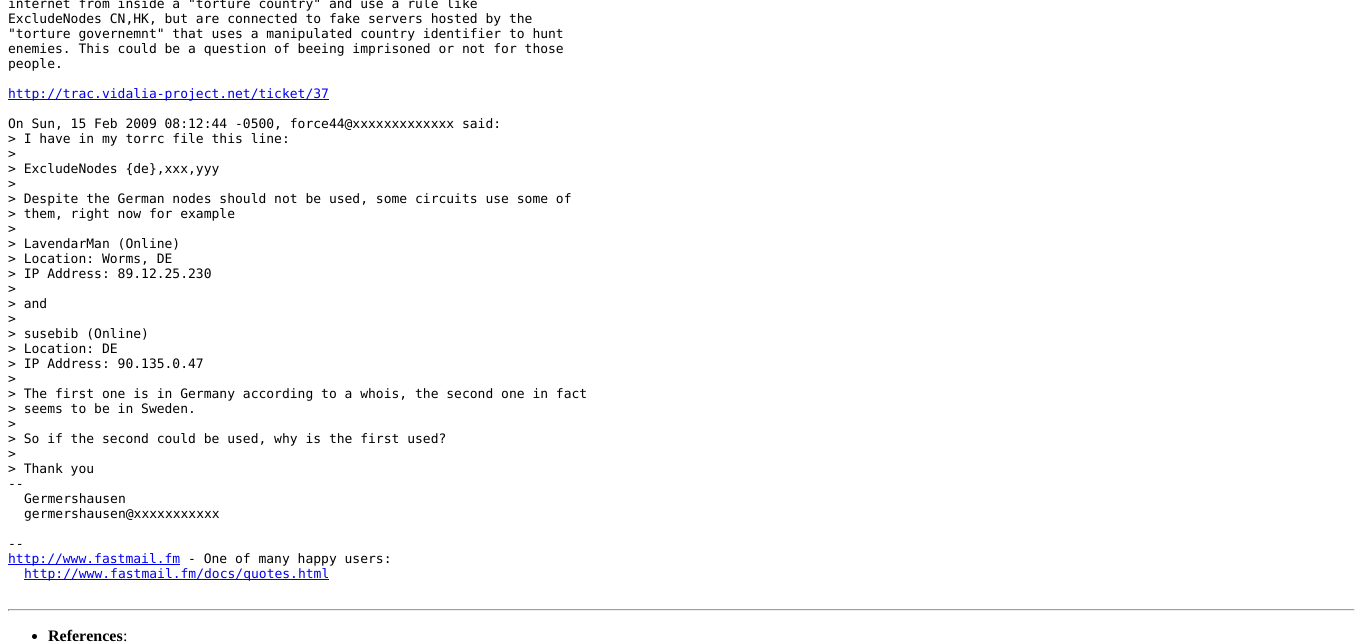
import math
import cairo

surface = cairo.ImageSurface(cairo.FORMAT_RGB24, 1363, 644)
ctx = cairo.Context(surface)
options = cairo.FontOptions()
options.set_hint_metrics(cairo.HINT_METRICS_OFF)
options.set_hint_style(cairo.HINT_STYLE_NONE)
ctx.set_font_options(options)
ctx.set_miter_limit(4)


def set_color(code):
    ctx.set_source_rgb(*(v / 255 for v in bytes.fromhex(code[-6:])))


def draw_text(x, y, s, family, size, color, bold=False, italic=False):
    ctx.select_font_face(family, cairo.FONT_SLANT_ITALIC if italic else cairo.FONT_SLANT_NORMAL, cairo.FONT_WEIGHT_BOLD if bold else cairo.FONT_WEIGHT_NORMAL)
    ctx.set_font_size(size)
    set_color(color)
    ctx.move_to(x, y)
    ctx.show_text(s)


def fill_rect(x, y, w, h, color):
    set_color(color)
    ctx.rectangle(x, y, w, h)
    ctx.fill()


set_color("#ffffff")
ctx.paint()
draw_text(8, 8, "internet from inside a \"torture country\" and use a rule like", "DejaVu Sans Mono", 13, "#000000")
draw_text(8, 23, "ExcludeNodes CN,HK, but are connected to fake servers hosted by the", "DejaVu Sans Mono", 13, "#000000")
draw_text(8, 38, "\"torture governemnt\" that uses a manipulated country identifier to hunt", "DejaVu Sans Mono", 13, "#000000")
draw_text(8, 53, "enemies. This could be a question of beeing imprisoned or not for those", "DejaVu Sans Mono", 13, "#000000")
draw_text(8, 68, "people.", "DejaVu Sans Mono", 13, "#000000")
fill_rect(8, 99, 321, 1, "#0000ee")
draw_text(8, 98, "http://trac.vidalia-project.net/ticket/37", "DejaVu Sans Mono", 13, "#0000ee")
draw_text(8, 128, "On Sun, 15 Feb 2009 08:12:44 -0500, force44@xxxxxxxxxxxxx said:", "DejaVu Sans Mono", 13, "#000000")
draw_text(8, 143, "> I have in my torrc file this line:", "DejaVu Sans Mono", 13, "#000000")
draw_text(8, 158, ">", "DejaVu Sans Mono", 13, "#000000")
draw_text(8, 173, "> ExcludeNodes {de},xxx,yyy", "DejaVu Sans Mono", 13, "#000000")
draw_text(8, 188, ">", "DejaVu Sans Mono", 13, "#000000")
draw_text(8, 203, "> Despite the German nodes should not be used, some circuits use some of", "DejaVu Sans Mono", 13, "#000000")
draw_text(8, 218, "> them, right now for example", "DejaVu Sans Mono", 13, "#000000")
draw_text(8, 233, ">", "DejaVu Sans Mono", 13, "#000000")
draw_text(8, 248, "> LavendarMan (Online)", "DejaVu Sans Mono", 13, "#000000")
draw_text(8, 263, "> Location: Worms, DE", "DejaVu Sans Mono", 13, "#000000")
draw_text(8, 278, "> IP Address: 89.12.25.230", "DejaVu Sans Mono", 13, "#000000")
draw_text(8, 293, ">", "DejaVu Sans Mono", 13, "#000000")
draw_text(8, 308, "> and", "DejaVu Sans Mono", 13, "#000000")
draw_text(8, 323, ">", "DejaVu Sans Mono", 13, "#000000")
draw_text(8, 338, "> susebib (Online)", "DejaVu Sans Mono", 13, "#000000")
draw_text(8, 353, "> Location: DE", "DejaVu Sans Mono", 13, "#000000")
draw_text(8, 368, "> IP Address: 90.135.0.47", "DejaVu Sans Mono", 13, "#000000")
draw_text(8, 383, ">", "DejaVu Sans Mono", 13, "#000000")
draw_text(8, 398, "> The first one is in Germany according to a whois, the second one in fact", "DejaVu Sans Mono", 13, "#000000")
draw_text(8, 413, "> seems to be in Sweden.", "DejaVu Sans Mono", 13, "#000000")
draw_text(8, 428, ">", "DejaVu Sans Mono", 13, "#000000")
draw_text(8, 443, "> So if the second could be used, why is the first used?", "DejaVu Sans Mono", 13, "#000000")
draw_text(8, 458, ">", "DejaVu Sans Mono", 13, "#000000")
draw_text(8, 473, "> Thank you", "DejaVu Sans Mono", 13, "#000000")
draw_text(8, 488, "--", "DejaVu Sans Mono", 13, "#000000")
draw_text(24, 503, "Germershausen", "DejaVu Sans Mono", 13, "#000000")
draw_text(24, 518, "germershausen@xxxxxxxxxxx", "DejaVu Sans Mono", 13, "#000000")
draw_text(8, 548, "--", "DejaVu Sans Mono", 13, "#000000")
fill_rect(8, 564, 172, 1, "#0000ee")
draw_text(8, 563, "http://www.fastmail.fm", "DejaVu Sans Mono", 13, "#0000ee")
draw_text(188, 563, "- One of many happy users:", "DejaVu Sans Mono", 13, "#000000")
fill_rect(24, 579, 305, 1, "#0000ee")
draw_text(24, 578, "http://www.fastmail.fm/docs/quotes.html", "DejaVu Sans Mono", 13, "#0000ee")
fill_rect(8, 609, 1347, 1, "#9f9f9f")
fill_rect(1354, 609, 1, 2, "#eeeeee")
fill_rect(8, 610, 1347, 1, "#eeeeee")
fill_rect(8, 609, 1, 2, "#9f9f9f")
set_color("#000000")
ctx.new_path()
ctx.arc(34.5, 636.5, 2.5, 0, 2 * math.pi)
ctx.fill()
draw_text(48, 641, "References", "Liberation Serif", 16, "#000000", bold=True)
draw_text(123, 641, ":", "Liberation Serif", 16, "#000000")
surface.write_to_png("output.png")
